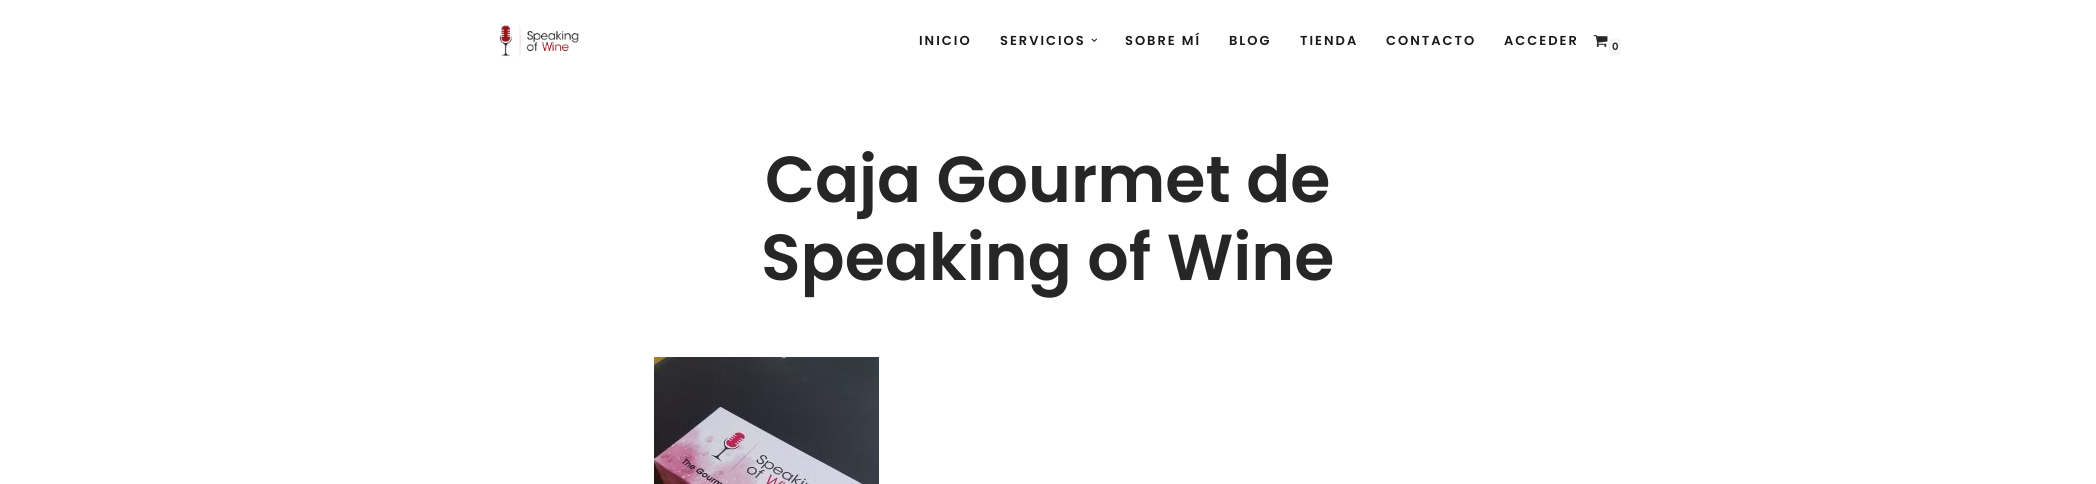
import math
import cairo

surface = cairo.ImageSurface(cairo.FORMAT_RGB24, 2096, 484)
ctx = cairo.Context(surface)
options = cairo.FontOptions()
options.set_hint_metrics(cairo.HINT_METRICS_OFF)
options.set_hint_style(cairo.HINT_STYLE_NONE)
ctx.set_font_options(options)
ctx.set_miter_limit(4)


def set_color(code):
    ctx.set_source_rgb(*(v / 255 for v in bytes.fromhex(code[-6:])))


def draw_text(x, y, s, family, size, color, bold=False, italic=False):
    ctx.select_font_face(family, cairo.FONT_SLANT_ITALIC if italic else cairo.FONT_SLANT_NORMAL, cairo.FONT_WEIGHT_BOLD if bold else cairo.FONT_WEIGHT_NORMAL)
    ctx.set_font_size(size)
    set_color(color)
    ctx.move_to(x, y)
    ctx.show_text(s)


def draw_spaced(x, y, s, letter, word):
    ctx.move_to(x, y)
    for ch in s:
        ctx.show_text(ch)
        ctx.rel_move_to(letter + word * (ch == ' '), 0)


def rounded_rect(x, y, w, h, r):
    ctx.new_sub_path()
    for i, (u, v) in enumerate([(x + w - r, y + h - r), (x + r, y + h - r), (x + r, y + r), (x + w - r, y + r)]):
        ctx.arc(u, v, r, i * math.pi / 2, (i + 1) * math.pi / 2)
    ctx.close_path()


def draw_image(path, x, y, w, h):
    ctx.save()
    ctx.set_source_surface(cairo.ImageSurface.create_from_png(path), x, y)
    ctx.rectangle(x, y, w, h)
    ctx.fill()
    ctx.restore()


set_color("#ffffff")
ctx.paint()
draw_image("assets/img1.png", 499, 24, 80, 34)
ctx.select_font_face("Poppins SemiBold")
ctx.set_font_size(13)
set_color("#18191d")
draw_spaced(919, 45, "INICIO", 2, 0)
draw_spaced(1000, 45, "SERVICIOS", 2, 0)
draw_image("assets/img2.png", 1091, 38, 6, 4)
draw_spaced(1125, 45, "SOBRE MÍ", 2, 0)
draw_spaced(1229, 45, "BLOG", 2, 0)
draw_spaced(1300, 45, "TIENDA", 2, 0)
draw_spaced(1386, 45, "CONTACTO", 2, 0)
draw_spaced(1504, 45, "ACCEDER", 2, 0)
draw_image("assets/img3.png", 1593, 35, 15, 12)
set_color("#f4f5f7")
rounded_rect(1609, 39, 12, 16, 3)
ctx.fill()
draw_text(1612, 50, "0", "Poppins SemiBold", 10, "#272626")
draw_text(765, 202, "Caja Gourmet de", "Poppins SemiBold", 65, "#272626")
draw_text(761, 280, "Speaking of Wine", "Poppins SemiBold", 65, "#272626")
draw_image("assets/img4.png", 654, 357, 225, 127)
surface.write_to_png("output.png")
